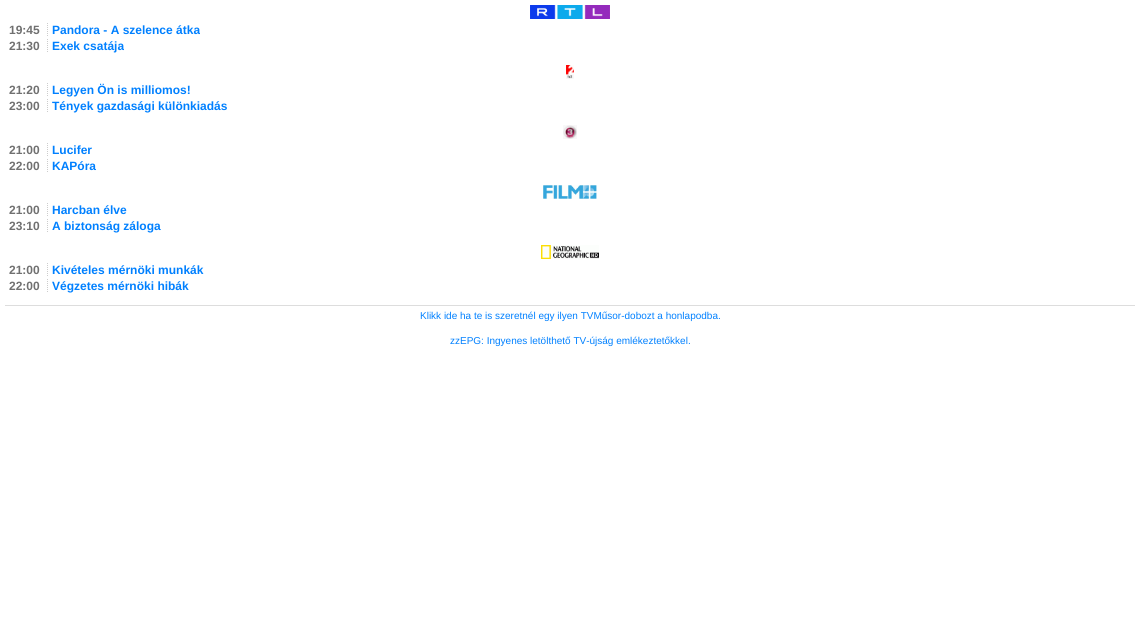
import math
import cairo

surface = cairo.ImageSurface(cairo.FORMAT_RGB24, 1140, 634)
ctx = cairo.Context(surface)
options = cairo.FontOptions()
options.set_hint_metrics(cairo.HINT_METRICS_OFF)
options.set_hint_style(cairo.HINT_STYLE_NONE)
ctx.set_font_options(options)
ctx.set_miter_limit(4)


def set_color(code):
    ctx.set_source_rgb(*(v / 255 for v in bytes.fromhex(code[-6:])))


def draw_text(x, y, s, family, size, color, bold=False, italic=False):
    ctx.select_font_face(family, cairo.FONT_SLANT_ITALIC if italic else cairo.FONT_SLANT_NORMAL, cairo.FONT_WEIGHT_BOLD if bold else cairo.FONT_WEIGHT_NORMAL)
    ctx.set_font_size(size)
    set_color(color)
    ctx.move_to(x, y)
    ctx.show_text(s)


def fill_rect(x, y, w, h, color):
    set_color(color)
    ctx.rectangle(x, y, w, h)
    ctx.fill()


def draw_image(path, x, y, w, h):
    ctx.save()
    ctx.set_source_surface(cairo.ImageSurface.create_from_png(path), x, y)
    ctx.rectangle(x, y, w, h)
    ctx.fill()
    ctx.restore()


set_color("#ffffff")
ctx.paint()
draw_image("assets/img1.png", 530, 5, 80, 14)
draw_text(9, 34, "19:45", "Liberation Sans", 12, "#707070", bold=True)
ctx.new_path()
ctx.move_to(47.5, 23)
ctx.line_to(47.5, 37)
ctx.move_to(47.5, 39)
ctx.line_to(47.5, 53)
set_color("#cccccc")
ctx.set_line_width(1)
ctx.set_dash([1, 1])
ctx.stroke()
draw_text(52, 34, "Pandora - A szelence átka", "Liberation Sans", 12, "#0080ff", bold=True)
draw_text(9, 50, "21:30", "Liberation Sans", 12, "#707070", bold=True)
draw_text(52, 50, "Exek csatája", "Liberation Sans", 12, "#0080ff", bold=True)
draw_image("assets/img2.png", 566, 65, 8, 14)
draw_text(9, 94, "21:20", "Liberation Sans", 12, "#707070", bold=True)
ctx.new_path()
ctx.move_to(47.5, 83)
ctx.line_to(47.5, 97)
ctx.move_to(47.5, 99)
ctx.line_to(47.5, 113)
set_color("#cccccc")
ctx.stroke()
draw_text(52, 94, "Legyen Ön is milliomos!", "Liberation Sans", 12, "#0080ff", bold=True)
draw_text(9, 110, "23:00", "Liberation Sans", 12, "#707070", bold=True)
draw_text(52, 110, "Tények gazdasági különkiadás", "Liberation Sans", 12, "#0080ff", bold=True)
draw_image("assets/img3.png", 563, 125, 14, 14)
draw_text(9, 154, "21:00", "Liberation Sans", 12, "#707070", bold=True)
ctx.new_path()
ctx.move_to(47.5, 143)
ctx.line_to(47.5, 157)
ctx.move_to(47.5, 159)
ctx.line_to(47.5, 173)
set_color("#cccccc")
ctx.stroke()
draw_text(52, 154, "Lucifer", "Liberation Sans", 12, "#0080ff", bold=True)
draw_text(9, 170, "22:00", "Liberation Sans", 12, "#707070", bold=True)
draw_text(52, 170, "KAPóra", "Liberation Sans", 12, "#0080ff", bold=True)
draw_image("assets/img4.png", 543, 185, 54, 14)
draw_text(9, 214, "21:00", "Liberation Sans", 12, "#707070", bold=True)
ctx.new_path()
ctx.move_to(47.5, 203)
ctx.line_to(47.5, 217)
ctx.move_to(47.5, 219)
ctx.line_to(47.5, 233)
set_color("#cccccc")
ctx.stroke()
draw_text(52, 214, "Harcban élve", "Liberation Sans", 12, "#0080ff", bold=True)
draw_text(9, 230, "23:10", "Liberation Sans", 12, "#707070", bold=True)
draw_text(52, 230, "A biztonság záloga", "Liberation Sans", 12, "#0080ff", bold=True)
draw_image("assets/img5.png", 541, 245, 58, 14)
draw_text(9, 274, "21:00", "Liberation Sans", 12, "#707070", bold=True)
ctx.new_path()
ctx.move_to(47.5, 263)
ctx.line_to(47.5, 277)
ctx.move_to(47.5, 279)
ctx.line_to(47.5, 293)
set_color("#cccccc")
ctx.stroke()
draw_text(52, 274, "Kivételes mérnöki munkák", "Liberation Sans", 12, "#0080ff", bold=True)
draw_text(9, 290, "22:00", "Liberation Sans", 12, "#707070", bold=True)
draw_text(52, 290, "Végzetes mérnöki hibák", "Liberation Sans", 12, "#0080ff", bold=True)
fill_rect(5, 305, 1130, 1, "#dddddd")
draw_text(420, 319, "Klikk ide ha te is szeretnél egy ilyen TVMűsor-dobozt a honlapodba.", "Liberation Sans", 10, "#0080ff")
draw_text(450, 344, "zzEPG: Ingyenes letölthető TV-újság emlékeztetőkkel.", "Liberation Sans", 10, "#0080ff")
surface.write_to_png("output.png")
